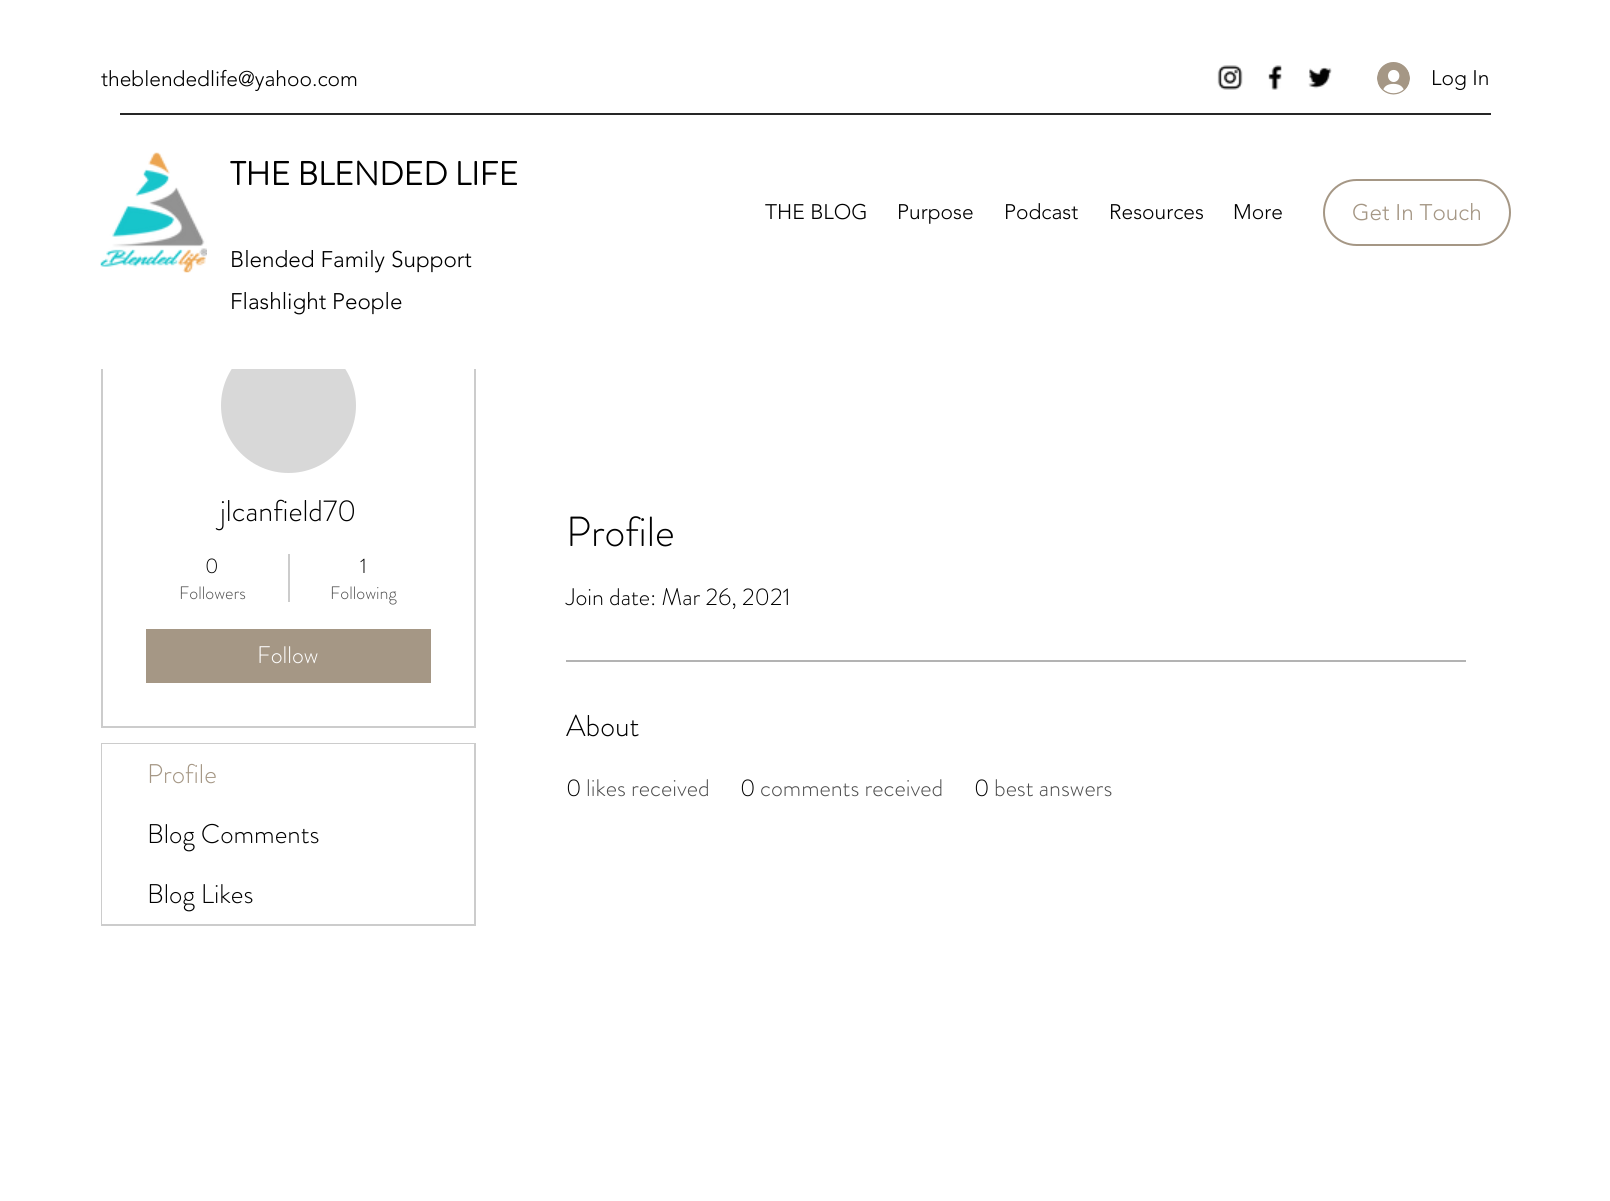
import math
import cairo

surface = cairo.ImageSurface(cairo.FORMAT_RGB24, 1610, 1201)
ctx = cairo.Context(surface)
options = cairo.FontOptions()
options.set_hint_metrics(cairo.HINT_METRICS_OFF)
options.set_hint_style(cairo.HINT_STYLE_NONE)
ctx.set_font_options(options)
ctx.set_miter_limit(4)


def set_color(code):
    ctx.set_source_rgb(*(v / 255 for v in bytes.fromhex(code[-6:])))


def draw_text(x, y, s, family, size, color, bold=False, italic=False):
    ctx.select_font_face(family, cairo.FONT_SLANT_ITALIC if italic else cairo.FONT_SLANT_NORMAL, cairo.FONT_WEIGHT_BOLD if bold else cairo.FONT_WEIGHT_NORMAL)
    ctx.set_font_size(size)
    set_color(color)
    ctx.move_to(x, y)
    ctx.show_text(s)


def fill_rect(x, y, w, h, color):
    set_color(color)
    ctx.rectangle(x, y, w, h)
    ctx.fill()


def rounded_rect(x, y, w, h, r):
    ctx.new_sub_path()
    for i, (u, v) in enumerate([(x + w - r, y + h - r), (x + r, y + h - r), (x + r, y + r), (x + w - r, y + r)]):
        ctx.arc(u, v, r, i * math.pi / 2, (i + 1) * math.pi / 2)
    ctx.close_path()


def draw_image(path, x, y, w, h):
    ctx.save()
    ctx.set_source_surface(cairo.ImageSurface.create_from_png(path), x, y)
    ctx.rectangle(x, y, w, h)
    ctx.fill()
    ctx.restore()


set_color("#ffffff")
ctx.paint()
draw_text(101, 86, "theblendedlife@yahoo.com", "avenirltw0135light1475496 Light", 21, "#000000")
draw_image("assets/img1.png", 1217, 65, 26, 25)
draw_image("assets/img2.png", 1268, 65, 14, 25)
draw_image("assets/img3.png", 1308, 67, 24, 22)
draw_image("assets/img4.png", 1377, 62, 33, 33)
draw_text(1431, 85, "Log In", "avenirltw0135light1475496 Light", 21, "#000000")
fill_rect(120, 113, 1371, 2, "#262626")
draw_image("assets/img5.png", 100, 152, 107, 121)
draw_text(230, 185, "THE BLENDED LIFE", "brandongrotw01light", 33, "#000000", bold=True)
draw_text(230, 267, "Blended Family Support", "avenirltw0135light1475496 Light", 22.5, "#000000")
ctx.rectangle(102, 294, 373, 433)
set_color("#cccccc")
ctx.stroke()
set_color("#d8d8d8")
ctx.arc(288.5, 405.5, 67.5, 0, 2 * math.pi)
ctx.fill()
fill_rect(101, 293, 375, 76, "#ffffff")
draw_text(230, 309, "Flashlight People", "avenirltw0135light1475496 Light", 22.5, "#000000")
draw_text(765, 219, "THE BLOG", "avenirltw0135light1475496 Light", 21, "#000000")
draw_text(897, 219, "Purpose", "avenirltw0135light1475496 Light", 21, "#000000")
draw_text(1004, 219, "Podcast", "avenirltw0135light1475496 Light", 21, "#000000")
draw_text(1109, 219, "Resources", "avenirltw0135light1475496 Light", 21, "#000000")
draw_text(1233, 219, "More", "avenirltw0135light1475496 Light", 21, "#000000")
rounded_rect(1324, 180, 186, 65, 32.5)
set_color("#a59785")
ctx.stroke()
draw_text(1352, 220, "Get In Touch", "avenirltw0135light1475496 Light", 22.5, "#a59785")
draw_text(220, 521, "jlcanfield70", "brandongrotw01light Light", 30, "#000000")
draw_text(205, 573, "0", "brandongrotw01light Light", 21, "#000000")
draw_text(179, 599, "Followers", "brandongrotw01light Light", 18, "#4d4d4d")
fill_rect(288, 554, 2, 48, "#cccccc")
draw_text(360, 573, "1", "brandongrotw01light Light", 21, "#000000")
draw_text(330, 599, "Following", "brandongrotw01light Light", 18, "#4d4d4d")
fill_rect(146, 629, 285, 54, "#a59785")
draw_text(257, 663, "Follow", "brandongrotw01light Light", 24, "#ffffff")
ctx.rectangle(102, 744, 373, 181)
set_color("#cccccc")
ctx.stroke()
fill_rect(102, 744, 372, 60, "#ffffff")
draw_text(147, 783, "Profile", "brandongrotw01light Light", 27, "#a59785")
fill_rect(102, 804, 1, 120, "#ffffff")
draw_text(147, 843, "Blog Comments", "brandongrotw01light Light", 27, "#000000")
draw_text(147, 903, "Blog Likes", "brandongrotw01light Light", 27, "#000000")
draw_text(566, 546, "Profile", "brandongrotw01light Light", 42, "#000000")
draw_text(566, 605, "Join date: Mar 26, 2021", "brandongrotw01light Light", 24, "#000000")
fill_rect(566, 660, 900, 2, "#b3b3b3")
draw_text(566, 736, "About", "brandongrotw01light Light", 30, "#000000")
draw_text(566, 796, "0", "brandongrotw01light Light", 24, "#000000")
draw_text(586, 796, "likes received", "brandongrotw01light Light", 24, "#4d4d4d")
draw_text(740, 796, "0", "brandongrotw01light Light", 24, "#000000")
draw_text(760, 796, "comments received", "brandongrotw01light Light", 24, "#4d4d4d")
draw_text(974, 796, "0", "brandongrotw01light Light", 24, "#000000")
draw_text(994, 796, "best answers", "brandongrotw01light Light", 24, "#4d4d4d")
surface.write_to_png("output.png")
